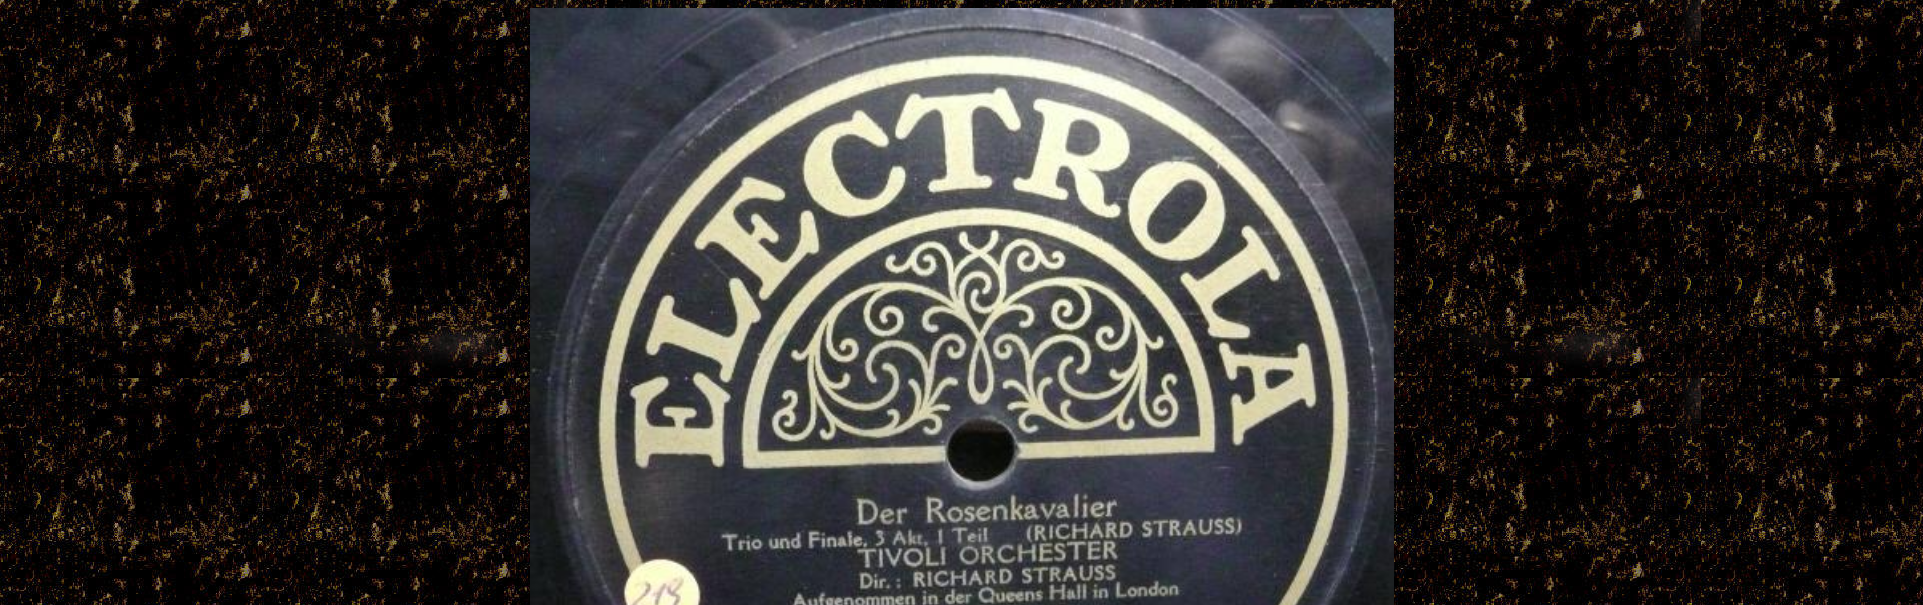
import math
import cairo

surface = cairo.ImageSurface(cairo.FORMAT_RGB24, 1923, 605)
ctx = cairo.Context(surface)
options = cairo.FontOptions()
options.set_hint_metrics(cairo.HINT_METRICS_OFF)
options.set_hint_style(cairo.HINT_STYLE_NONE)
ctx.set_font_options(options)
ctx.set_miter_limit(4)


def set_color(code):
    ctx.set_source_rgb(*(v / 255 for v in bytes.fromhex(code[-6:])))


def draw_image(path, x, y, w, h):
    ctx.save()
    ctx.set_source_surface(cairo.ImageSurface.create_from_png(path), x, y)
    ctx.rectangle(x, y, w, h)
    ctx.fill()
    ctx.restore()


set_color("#ffffff")
ctx.paint()
draw_image("assets/img1.png", 0, 0, 1923, 605)
draw_image("assets/img2.png", 530, 8, 864, 597)
surface.write_to_png("output.png")
